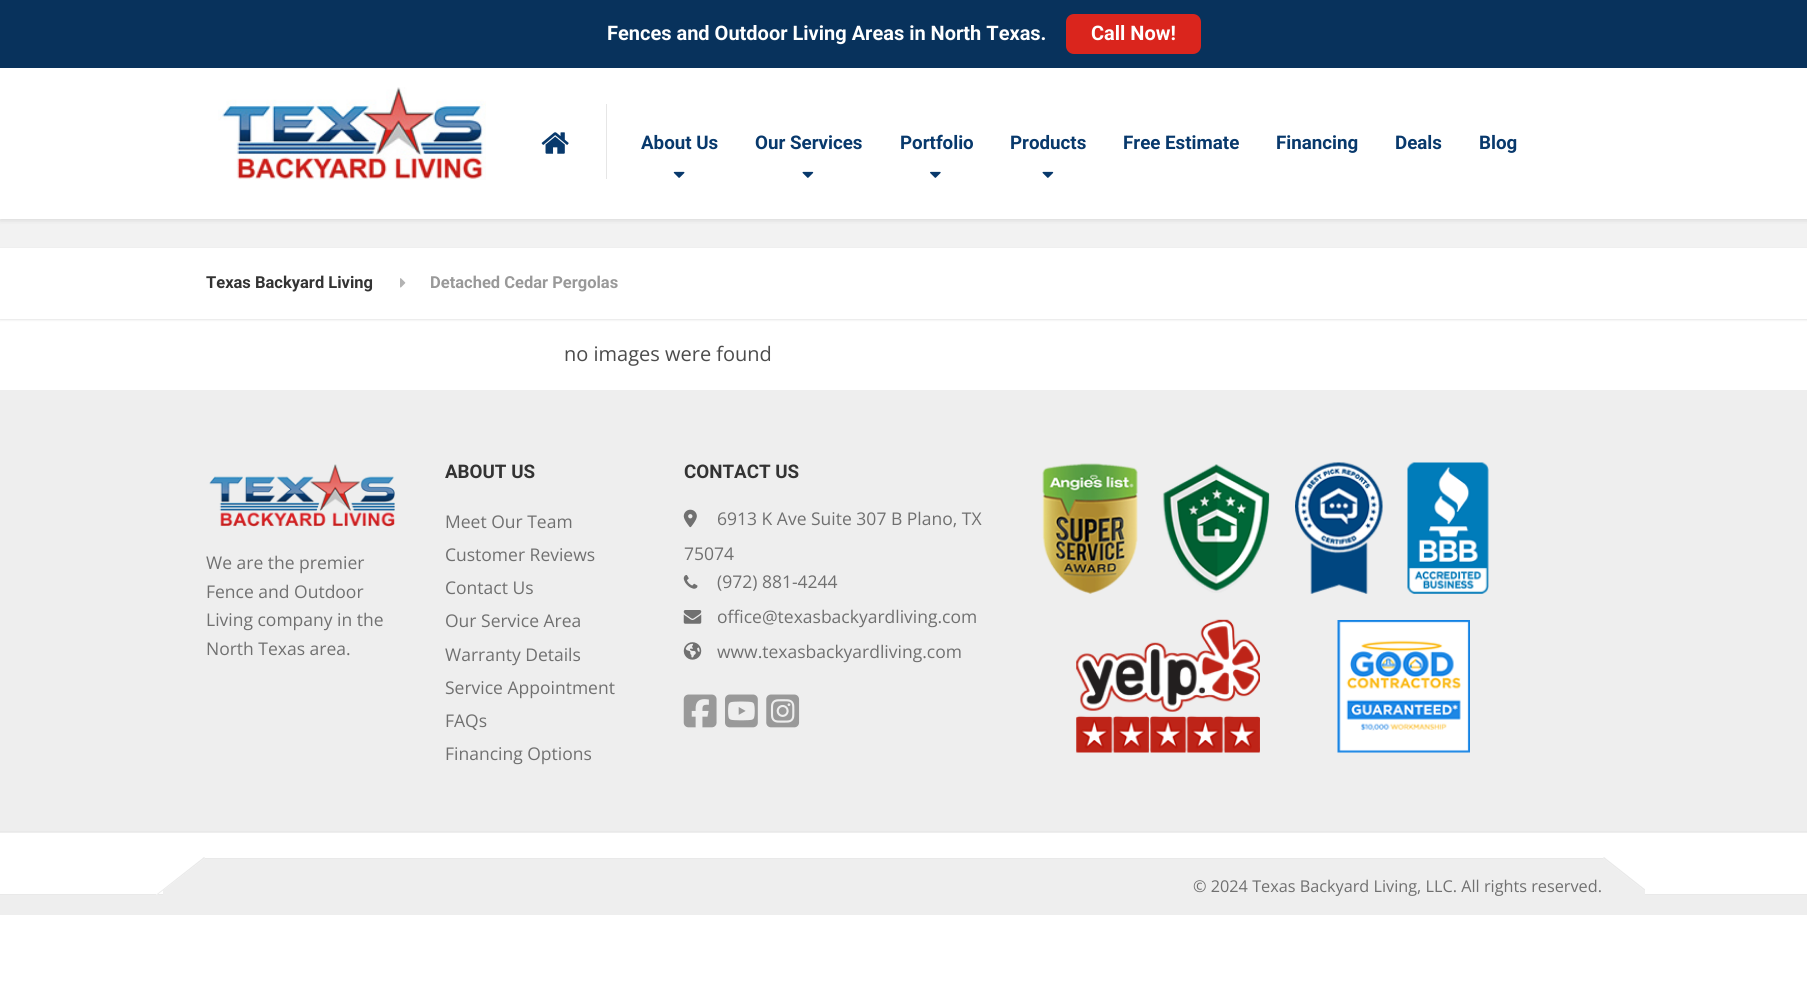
import math
import cairo

surface = cairo.ImageSurface(cairo.FORMAT_RGB24, 1807, 1001)
ctx = cairo.Context(surface)
options = cairo.FontOptions()
options.set_hint_metrics(cairo.HINT_METRICS_OFF)
options.set_hint_style(cairo.HINT_STYLE_NONE)
ctx.set_font_options(options)
ctx.set_miter_limit(4)


def set_color(code):
    ctx.set_source_rgb(*(v / 255 for v in bytes.fromhex(code[-6:])))


def draw_text(x, y, s, family, size, color, bold=False, italic=False):
    ctx.select_font_face(family, cairo.FONT_SLANT_ITALIC if italic else cairo.FONT_SLANT_NORMAL, cairo.FONT_WEIGHT_BOLD if bold else cairo.FONT_WEIGHT_NORMAL)
    ctx.set_font_size(size)
    set_color(color)
    ctx.move_to(x, y)
    ctx.show_text(s)


def fill_rect(x, y, w, h, color):
    set_color(color)
    ctx.rectangle(x, y, w, h)
    ctx.fill()


def rounded_rect(x, y, w, h, r):
    ctx.new_sub_path()
    for i, (u, v) in enumerate([(x + w - r, y + h - r), (x + r, y + h - r), (x + r, y + r), (x + w - r, y + r)]):
        ctx.arc(u, v, r, i * math.pi / 2, (i + 1) * math.pi / 2)
    ctx.close_path()


def draw_shadow(x, y, w, h, r, blur, alpha):
    ctx.push_group_with_content(cairo.CONTENT_ALPHA)
    ctx.set_operator(cairo.OPERATOR_SOURCE)
    for i in range(15, -16, -2):
        e = blur * i / 6
        if min(w, h) + 2 * e > 0:
            ctx.set_source_rgba(0, 0, 0, alpha * math.erfc((i - 1) / 8.5) / 2)
            rounded_rect(x - e, y - e, w + 2 * e, h + 2 * e, max(0, min(r + e + blur * .6, min(w, h) / 2 + e)))
            ctx.fill()
    ctx.mask(ctx.pop_group())


def draw_image(path, x, y, w, h):
    ctx.save()
    ctx.set_source_surface(cairo.ImageSurface.create_from_png(path), x, y)
    ctx.rectangle(x, y, w, h)
    ctx.fill()
    ctx.restore()


set_color("#ffffff")
ctx.paint()
fill_rect(0, 219, 1807, 29, "#f2f2f2")
set_color("#dedede")
draw_shadow(0, 70, 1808, 151, 0, 2, 1)
fill_rect(0, 0, 1807, 68, "#08325c")
draw_text(607, 40, "Fences and Outdoor Living Areas in North Texas.", "Roboto", 20, "#ffffff", bold=True)
set_color("#da251d")
rounded_rect(1066, 14, 135, 40, 8)
ctx.fill()
draw_text(1091, 40, "Call Now!", "Roboto", 20, "#ffffff", bold=True)
fill_rect(0, 68, 1807, 151, "#ffffff")
draw_image("assets/img1.png", 218, 87, 268, 93)
fill_rect(606, 104, 1, 75, "#e6e6e6")
draw_image("assets/img2.png", 541, 132, 28, 22)
draw_text(641, 149, "About Us", "Roboto", 18.75, "#08396c", bold=True)
draw_image("assets/img3.png", 673, 171, 12, 7)
draw_text(755, 149, "Our Services", "Roboto", 18.75, "#08396c", bold=True)
draw_image("assets/img4.png", 802, 171, 12, 7)
draw_text(900, 149, "Portfolio", "Roboto", 18.75, "#08396c", bold=True)
draw_image("assets/img5.png", 930, 171, 11, 7)
draw_text(1010, 149, "Products", "Roboto", 18.75, "#08396c", bold=True)
draw_image("assets/img4.png", 1042, 171, 12, 7)
draw_text(1123, 149, "Free Estimate", "Roboto", 18.75, "#08396c", bold=True)
draw_text(1276, 149, "Financing", "Roboto", 18.75, "#08396c", bold=True)
draw_text(1395, 149, "Deals", "Roboto", 18.75, "#08396c", bold=True)
draw_text(1479, 149, "Blog", "Roboto", 18.75, "#08396c", bold=True)
set_color("#000000")
draw_shadow(0, 249, 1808, 71, 0, 1, 0.1)
fill_rect(0, 248, 1807, 71, "#ffffff")
draw_text(206, 288, "Texas Backyard Living", "Roboto", 16.5, "#333333", bold=True)
draw_image("assets/img6.png", 400, 278, 6, 10)
draw_text(430, 288, "Detached Cedar Pergolas", "Roboto", 16.5, "#999999", bold=True)
draw_text(564, 361, "no images were found", "Open Sans", 20, "#4c4c4c")
fill_rect(0, 859, 1807, 56, "#eeeeee")
fill_rect(203, 858, 1402, 1, "#e9e9e9")
fill_rect(0, 859, 163, 35, "#ffffff")
fill_rect(0, 894, 163, 1, "#e9e9e9")
set_color("#ffffff")
ctx.new_path()
ctx.move_to(168, 812)
ctx.line_to(205, 858)
ctx.line_to(157, 895)
ctx.line_to(121, 849)
ctx.close_path()
ctx.fill()
ctx.new_path()
ctx.move_to(1603, 858)
ctx.line_to(1639, 812)
ctx.line_to(1686, 849)
ctx.line_to(1650, 895)
ctx.close_path()
ctx.fill()
fill_rect(0, 390, 1807, 443, "#eeeeee")
fill_rect(0, 831, 1807, 1, "#e9e9e9")
draw_image("assets/img7.png", 209, 464, 186, 63)
draw_text(206, 569, "We are the premier", "Open Sans", 17.5, "#707070")
draw_text(206, 598, "Fence and Outdoor", "Open Sans", 17.5, "#707070")
draw_text(206, 626, "Living company in the", "Open Sans", 17.5, "#707070")
draw_text(206, 655, "North Texas area.", "Open Sans", 17.5, "#707070")
draw_text(445, 478, "ABOUT US", "Roboto", 18.75, "#333333", bold=True)
draw_text(445, 528, "Meet Our Team", "Open Sans", 17.5, "#707070")
draw_text(445, 561, "Customer Reviews", "Open Sans", 17.5, "#707070")
draw_text(445, 594, "Contact Us", "Open Sans", 17.5, "#707070")
draw_text(445, 627, "Our Service Area", "Open Sans", 17.5, "#707070")
draw_text(445, 661, "Warranty Details", "Open Sans", 17.5, "#707070")
draw_text(445, 694, "Service Appointment", "Open Sans", 17.5, "#707070")
draw_text(445, 727, "FAQs", "Open Sans", 17.5, "#707070")
draw_text(445, 760, "Financing Options", "Open Sans", 17.5, "#707070")
draw_text(684, 478, "CONTACT US", "Roboto", 18.75, "#333333", bold=True)
draw_image("assets/img8.png", 683, 509, 14, 19)
draw_text(717, 525, "6913 K Ave Suite 307 B Plano, TX", "Open Sans", 17.5, "#707070")
draw_text(684, 560, "75074", "Open Sans", 17.5, "#707070")
draw_image("assets/img9.png", 683, 575, 15, 14)
draw_text(717, 588, "(972) 881-4244", "Open Sans", 17.5, "#707070")
draw_image("assets/img10.png", 683, 610, 19, 14)
draw_text(717, 623, "office@texasbackyardliving.com", "Open Sans", 17.5, "#707070")
draw_image("assets/img11.png", 683, 642, 19, 18)
draw_text(717, 658, "www.texasbackyardliving.com", "Open Sans", 17.5, "#707070")
draw_image("assets/img12.png", 683, 694, 34, 34)
draw_image("assets/img13.png", 725, 694, 33, 34)
draw_image("assets/img14.png", 766, 694, 34, 34)
draw_image("assets/img15.png", 1042, 463, 96, 131)
draw_image("assets/img16.png", 1162, 464, 108, 129)
draw_image("assets/img17.png", 1295, 462, 88, 132)
draw_image("assets/img18.png", 1407, 462, 82, 132)
draw_image("assets/img19.png", 1076, 619, 184, 134)
draw_image("assets/img20.png", 1337, 620, 133, 133)
set_color("#e9e9e9")
ctx.new_path()
ctx.move_to(204, 857)
ctx.line_to(205, 858)
ctx.line_to(157, 895)
ctx.line_to(157, 894)
ctx.close_path()
ctx.fill()
draw_text(1193, 892, "© 2024 Texas Backyard Living, LLC. All rights reserved.", "Open Sans", 16.25, "#707070")
set_color("#e9e9e9")
ctx.new_path()
ctx.move_to(1603, 858)
ctx.line_to(1604, 857)
ctx.line_to(1651, 894)
ctx.line_to(1650, 895)
ctx.close_path()
ctx.fill()
fill_rect(1645, 859, 162, 35, "#ffffff")
fill_rect(1645, 894, 162, 1, "#e9e9e9")
surface.write_to_png("output.png")
